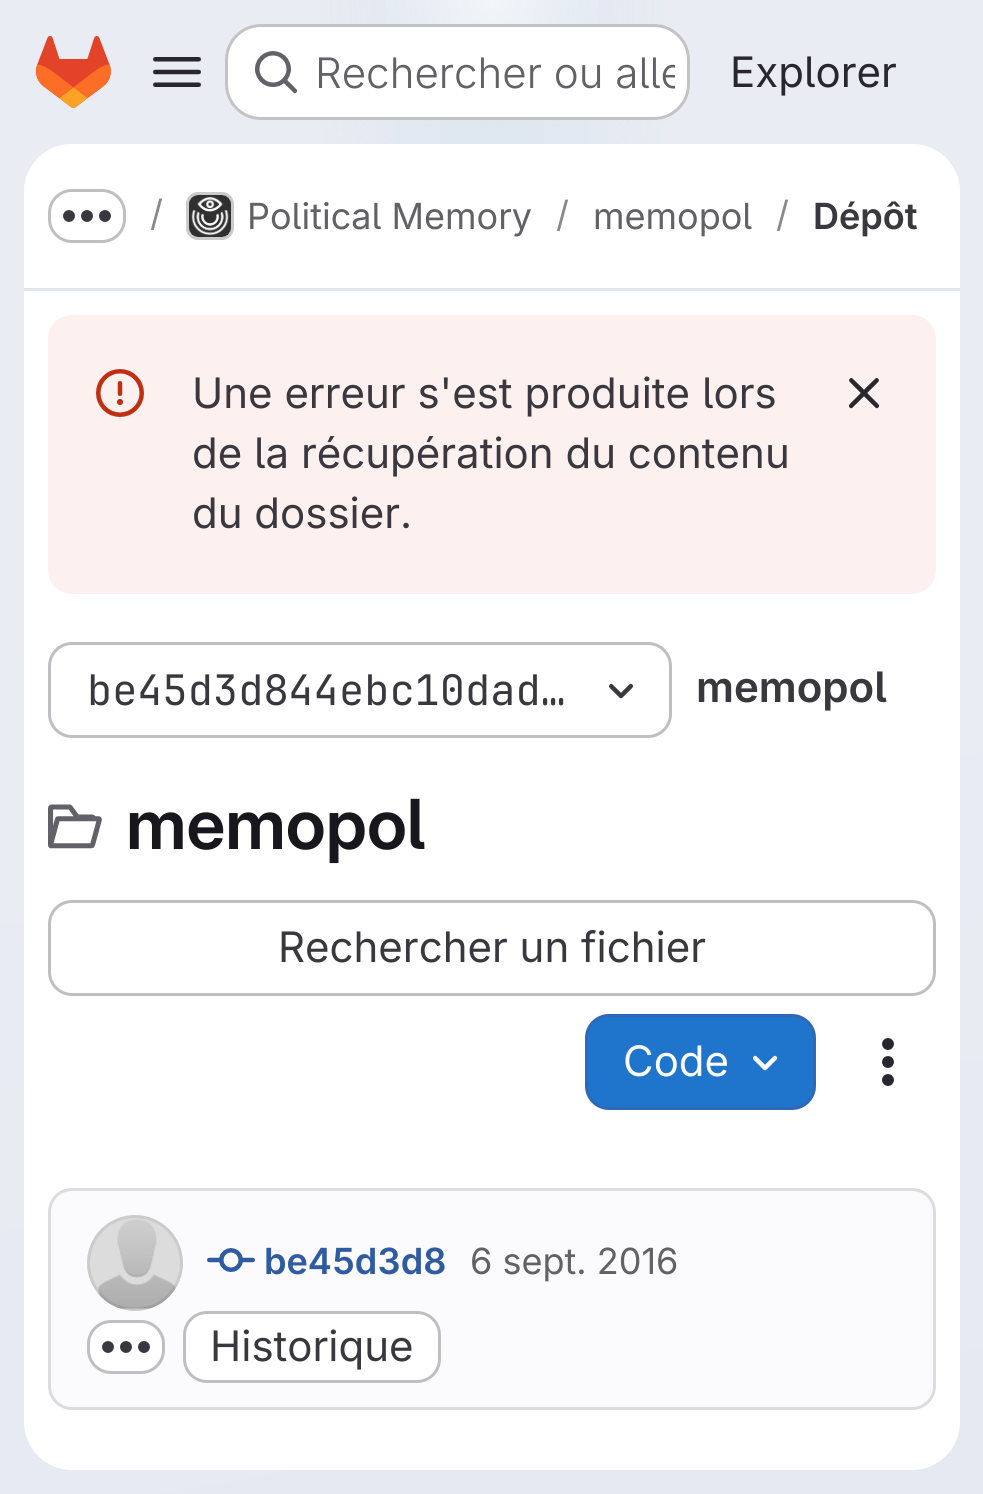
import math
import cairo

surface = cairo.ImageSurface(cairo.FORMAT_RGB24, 983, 1494)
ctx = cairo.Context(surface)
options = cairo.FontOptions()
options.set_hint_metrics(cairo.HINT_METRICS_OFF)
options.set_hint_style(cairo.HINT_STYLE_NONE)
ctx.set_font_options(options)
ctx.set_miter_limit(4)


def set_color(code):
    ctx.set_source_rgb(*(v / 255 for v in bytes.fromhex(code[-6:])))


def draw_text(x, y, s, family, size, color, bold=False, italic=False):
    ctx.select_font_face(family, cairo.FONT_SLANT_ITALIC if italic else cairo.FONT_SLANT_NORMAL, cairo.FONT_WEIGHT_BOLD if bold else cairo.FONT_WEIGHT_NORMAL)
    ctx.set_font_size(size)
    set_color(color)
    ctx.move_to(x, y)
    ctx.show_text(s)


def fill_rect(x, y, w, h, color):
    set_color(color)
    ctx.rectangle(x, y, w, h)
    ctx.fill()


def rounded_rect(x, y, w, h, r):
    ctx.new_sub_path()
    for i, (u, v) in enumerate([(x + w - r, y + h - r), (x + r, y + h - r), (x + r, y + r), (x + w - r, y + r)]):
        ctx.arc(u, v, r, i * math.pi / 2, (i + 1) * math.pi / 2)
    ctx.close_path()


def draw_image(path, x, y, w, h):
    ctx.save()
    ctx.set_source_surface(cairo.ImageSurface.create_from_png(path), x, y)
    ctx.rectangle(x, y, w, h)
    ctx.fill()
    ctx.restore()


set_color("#ffffff")
ctx.paint()
gradient = cairo.LinearGradient(635, 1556, 349, -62)
gradient.add_color_stop_rgba(0, 0.898, 0.914, 0.949, 1)
gradient.add_color_stop_rgba(0.7, 0.914, 0.929, 0.953, 1)
ctx.set_source(gradient)
ctx.rectangle(0, 0, 983, 1494)
ctx.fill()
gradient = cairo.RadialGradient(0, 0, 0, 0, 0, 1)
gradient.set_matrix(cairo.Matrix(1 / 492, 0, 0, 1 / 1494, -1 * 492 / 492, -1 * 0 / 1494))
gradient.add_color_stop_rgba(0, 0.871, 0.898, 0.945, 1)
gradient.add_color_stop_rgba(0.43, 0.871, 0.898, 0.945, 0)
ctx.set_source(gradient)
ctx.rectangle(319, 0, 346, 144)
ctx.fill()
gradient = cairo.RadialGradient(0, 0, 0, 0, 0, 1)
gradient.set_matrix(cairo.Matrix(1 / 492, 0, 0, 1 / 1494, -1 * 492 / 492, -1 * 0 / 1494))
gradient.add_color_stop_rgba(0, 0.871, 0.906, 0.945, 1)
gradient.add_color_stop_rgba(0.3, 0.871, 0.906, 0.945, 0)
ctx.set_source(gradient)
ctx.rectangle(394, 0, 196, 144)
ctx.fill()
gradient = cairo.RadialGradient(492, 0, 0, 492, 0, 1573)
gradient.add_color_stop_rgba(0, 1, 1, 1, 0.6)
gradient.add_color_stop_rgba(0.08, 1, 1, 1, 0)
ctx.set_source(gradient)
ctx.rectangle(386, 0, 212, 109)
ctx.fill()
draw_image("assets/img1.png", 36, 36, 75, 72)
draw_image("assets/img2.png", 153, 57, 48, 30)
set_color("#ffffff")
rounded_rect(225, 24, 465, 96, 36)
ctx.fill()
rounded_rect(226.5, 25.5, 462, 93, 34.5)
ctx.set_source_rgba(0.02, 0.02, 0.024, 0.24)
ctx.set_line_width(3)
ctx.stroke()
draw_image("assets/img3.png", 255, 51, 43, 43)
ctx.save()
ctx.rectangle(252, 42, 423, 60)
ctx.clip()
draw_text(315, 88, "Rechercher ou alle", "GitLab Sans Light", 42, "#626168")
ctx.restore()
draw_text(730, 87, "Explorer", "GitLab Sans", 42, "#28272d")
set_color("#ffffff")
rounded_rect(24, 144, 936, 1326, 48)
ctx.fill()
ctx.new_path()
ctx.move_to(72, 144)
ctx.line_to(912, 144)
ctx.curve_to(938.5, 144, 960, 165.5, 960, 192)
ctx.line_to(960, 291)
ctx.line_to(24, 291)
ctx.line_to(24, 192)
ctx.curve_to(24, 165.5, 45.5, 144, 72, 144)
ctx.close_path()
ctx.fill()
fill_rect(24, 288, 936, 3, "#dfe6ec")
rounded_rect(49.5, 190.5, 75, 51, 22.5)
set_color("#bfbfc3")
ctx.stroke()
draw_image("assets/img4.png", 63, 210, 48, 12)
draw_text(150, 226, "/", "GitLab Sans", 36, "#89888d")
rounded_rect(187.5, 193.5, 45, 45, 10.5)
set_color("#dcdcde")
ctx.stroke()
draw_image("assets/img5.png", 189, 195, 42, 42)
rounded_rect(187.5, 193.5, 45, 45, 10.5)
ctx.set_source_rgba(0.02, 0.02, 0.024, 0.08)
ctx.stroke()
draw_text(247, 229, "Political Memory", "GitLab Sans", 36, "#626168")
draw_text(556, 227, "/", "GitLab Sans", 36, "#89888d")
draw_text(593, 229, "memopol", "GitLab Sans", 36, "#626168")
draw_text(776, 227, "/", "GitLab Sans", 36, "#89888d")
draw_text(813, 229, "Dépôt", "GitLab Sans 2 SemiBold", 36, "#3a383f")
set_color("#fcf1ef")
rounded_rect(48, 315, 888, 279, 24)
ctx.fill()
draw_image("assets/img6.png", 96, 369, 48, 48)
draw_text(192, 408, "Une erreur s'est produite lors", "GitLab Sans", 42, "#3a383f")
draw_text(192, 468, "de la récupération du contenu", "GitLab Sans", 42, "#3a383f")
draw_text(192, 528, "du dossier.", "GitLab Sans", 42, "#3a383f")
draw_image("assets/img7.png", 848, 378, 32, 31)
rounded_rect(49.5, 643.5, 621, 93, 22.5)
set_color("#bfbfc3")
ctx.stroke()
draw_text(87, 705, "be45d3d844ebc10dad…", "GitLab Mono", 42, "#3a383f")
draw_image("assets/img8.png", 608, 683, 26, 16)
draw_text(696, 702, "memopol", "GitLab Sans 2 SemiBold", 42, "#3a383f")
draw_image("assets/img9.png", 48, 804, 54, 45)
draw_text(126, 849, "memopol", "GitLab Sans SemiBold", 69, "#18171d")
rounded_rect(49.5, 901.5, 885, 93, 22.5)
set_color("#bfbfc3")
ctx.stroke()
draw_text(278, 962, "Rechercher un fichier", "GitLab Sans", 42, "#3a383f")
set_color("#1f75cb")
rounded_rect(586.5, 1015.5, 228, 93, 22.5)
ctx.fill_preserve()
set_color("#2f68b4")
ctx.stroke()
draw_text(623, 1076, "Code", "GitLab Sans", 42, "#ffffff")
draw_image("assets/img10.png", 752, 1055, 26, 16)
draw_image("assets/img11.png", 882, 1038, 12, 48)
set_color("#fbfafd")
rounded_rect(49.5, 1189.5, 885, 219, 22.5)
ctx.fill_preserve()
set_color("#dcdcde")
ctx.stroke()
draw_image("assets/img12.png", 87, 1215, 96, 96)
ctx.arc(135, 1263, 46.5, 0, 2 * math.pi)
ctx.set_source_rgba(0.02, 0.02, 0.024, 0.08)
ctx.stroke()
draw_image("assets/img13.png", 207, 1248, 48, 24)
draw_text(264, 1274, "be45d3d8", "GitLab Sans 2 SemiBold", 36, "#2f5ca0")
draw_text(470, 1274, "6 sept. 2016", "GitLab Sans", 36, "#626168")
set_color("#ffffff")
rounded_rect(88.5, 1321.5, 75, 51, 22.5)
ctx.fill_preserve()
set_color("#bfbfc3")
ctx.stroke()
draw_image("assets/img14.png", 102, 1341, 48, 12)
set_color("#ffffff")
rounded_rect(184.5, 1312.5, 255, 69, 22.5)
ctx.fill_preserve()
set_color("#bfbfc3")
ctx.stroke()
draw_text(210, 1361, "Historique", "GitLab Sans", 42, "#3a383f")
surface.write_to_png("output.png")
